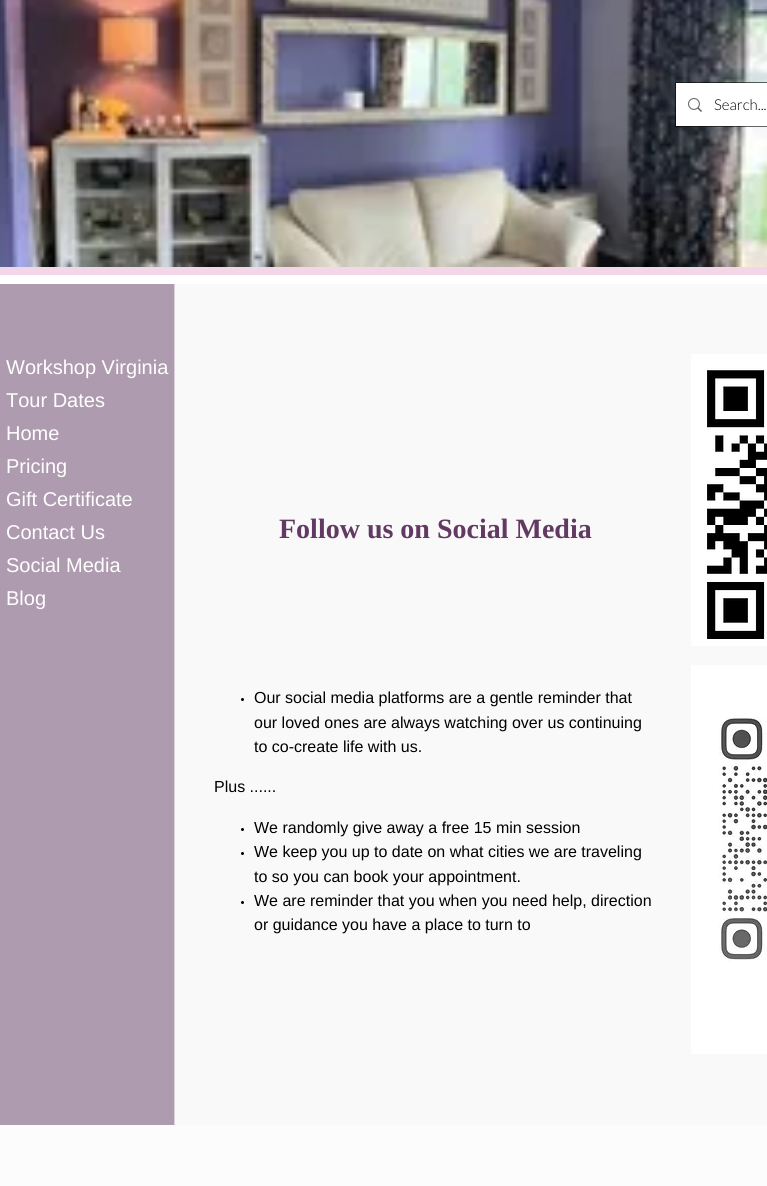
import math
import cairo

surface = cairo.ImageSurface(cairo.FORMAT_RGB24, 767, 1186)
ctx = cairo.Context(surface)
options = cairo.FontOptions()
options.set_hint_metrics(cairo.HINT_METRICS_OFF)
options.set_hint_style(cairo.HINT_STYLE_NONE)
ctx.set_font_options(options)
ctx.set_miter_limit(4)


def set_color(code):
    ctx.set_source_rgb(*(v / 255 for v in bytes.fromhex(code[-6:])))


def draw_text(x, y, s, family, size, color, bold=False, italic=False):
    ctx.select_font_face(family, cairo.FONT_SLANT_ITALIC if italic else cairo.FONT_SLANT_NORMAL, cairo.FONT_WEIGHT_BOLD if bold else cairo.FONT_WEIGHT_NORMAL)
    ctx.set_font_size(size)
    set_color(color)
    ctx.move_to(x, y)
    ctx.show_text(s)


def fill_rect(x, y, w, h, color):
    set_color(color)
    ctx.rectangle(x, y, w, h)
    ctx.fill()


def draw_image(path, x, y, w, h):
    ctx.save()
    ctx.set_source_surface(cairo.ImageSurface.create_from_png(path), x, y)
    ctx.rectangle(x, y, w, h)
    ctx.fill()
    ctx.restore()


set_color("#fcfcfc")
ctx.paint()
ctx.rectangle(-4, -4, 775, 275)
set_color("#f3d7e8")
ctx.set_line_width(8)
ctx.stroke()
draw_image("assets/img1.png", 0, 0, 767, 267)
fill_rect(0, 275, 767, 9, "#ffffff")
ctx.rectangle(675.5, 82.5, 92, 44)
ctx.set_source_rgba(0, 0, 0, 0.6)
ctx.set_line_width(1)
ctx.stroke()
fill_rect(676, 83, 91, 43, "#ffffff")
draw_image("assets/img2.png", 688, 98, 14, 14)
draw_text(714, 110, "Search...", "Lato Light", 15, "#000000")
fill_rect(0, 284, 175, 841, "#af9baf")
draw_text(6, 374, "Workshop Virginia", "Liberation Sans", 20, "#ffffff")
draw_text(6, 407, "Tour Dates", "Liberation Sans", 20, "#ffffff")
draw_text(6, 440, "Home", "Liberation Sans", 20, "#ffffff")
draw_text(6, 473, "Pricing", "Liberation Sans", 20, "#ffffff")
draw_text(6, 506, "Gift Certificate", "Liberation Sans", 20, "#ffffff")
draw_text(6, 539, "Contact Us", "Liberation Sans", 20, "#ffffff")
draw_text(6, 572, "Social Media", "Liberation Sans", 20, "#ffffff")
draw_text(6, 605, "Blog", "Liberation Sans", 20, "#ffffff")
ctx.set_source_rgba(0.969, 0.969, 0.969, 0.6)
ctx.rectangle(174, 284, 593, 841)
ctx.fill()
draw_text(279, 538, "Follow us on Social Media", "Liberation Serif", 28, "#623962", bold=True)
set_color("#000000")
ctx.new_path()
ctx.arc(242.5, 699.5, 1.5, 0, 2 * math.pi)
ctx.fill()
draw_text(254, 703, "Our social media platforms are a gentle reminder that", "Liberation Sans", 16, "#000000")
draw_text(254, 728, "our loved ones are always watching over us continuing", "Liberation Sans", 16, "#000000")
draw_text(254, 752, "to co-create life with us.", "Liberation Sans", 16, "#000000")
draw_text(214, 792, "Plus ......", "Liberation Sans", 16, "#000000")
ctx.new_path()
ctx.arc(242.5, 829.5, 1.5, 0, 2 * math.pi)
ctx.fill()
draw_text(254, 833, "We randomly give away a free 15 min session", "Liberation Sans", 16, "#000000")
ctx.new_path()
ctx.arc(242.5, 853.5, 1.5, 0, 2 * math.pi)
ctx.fill()
draw_text(254, 857, "We keep you up to date on what cities we are traveling", "Liberation Sans", 16, "#000000")
draw_text(254, 882, "to so you can book your appointment.", "Liberation Sans", 16, "#000000")
ctx.new_path()
ctx.arc(242.5, 902.5, 1.5, 0, 2 * math.pi)
ctx.fill()
draw_text(254, 906, "We are reminder that you when you need help, direction", "Liberation Sans", 16, "#000000")
draw_text(254, 930, "or guidance you have a place to turn to", "Liberation Sans", 16, "#000000")
draw_image("assets/img3.png", 691, 354, 76, 292)
draw_image("assets/img4.png", 691, 665, 76, 389)
surface.write_to_png("output.png")
